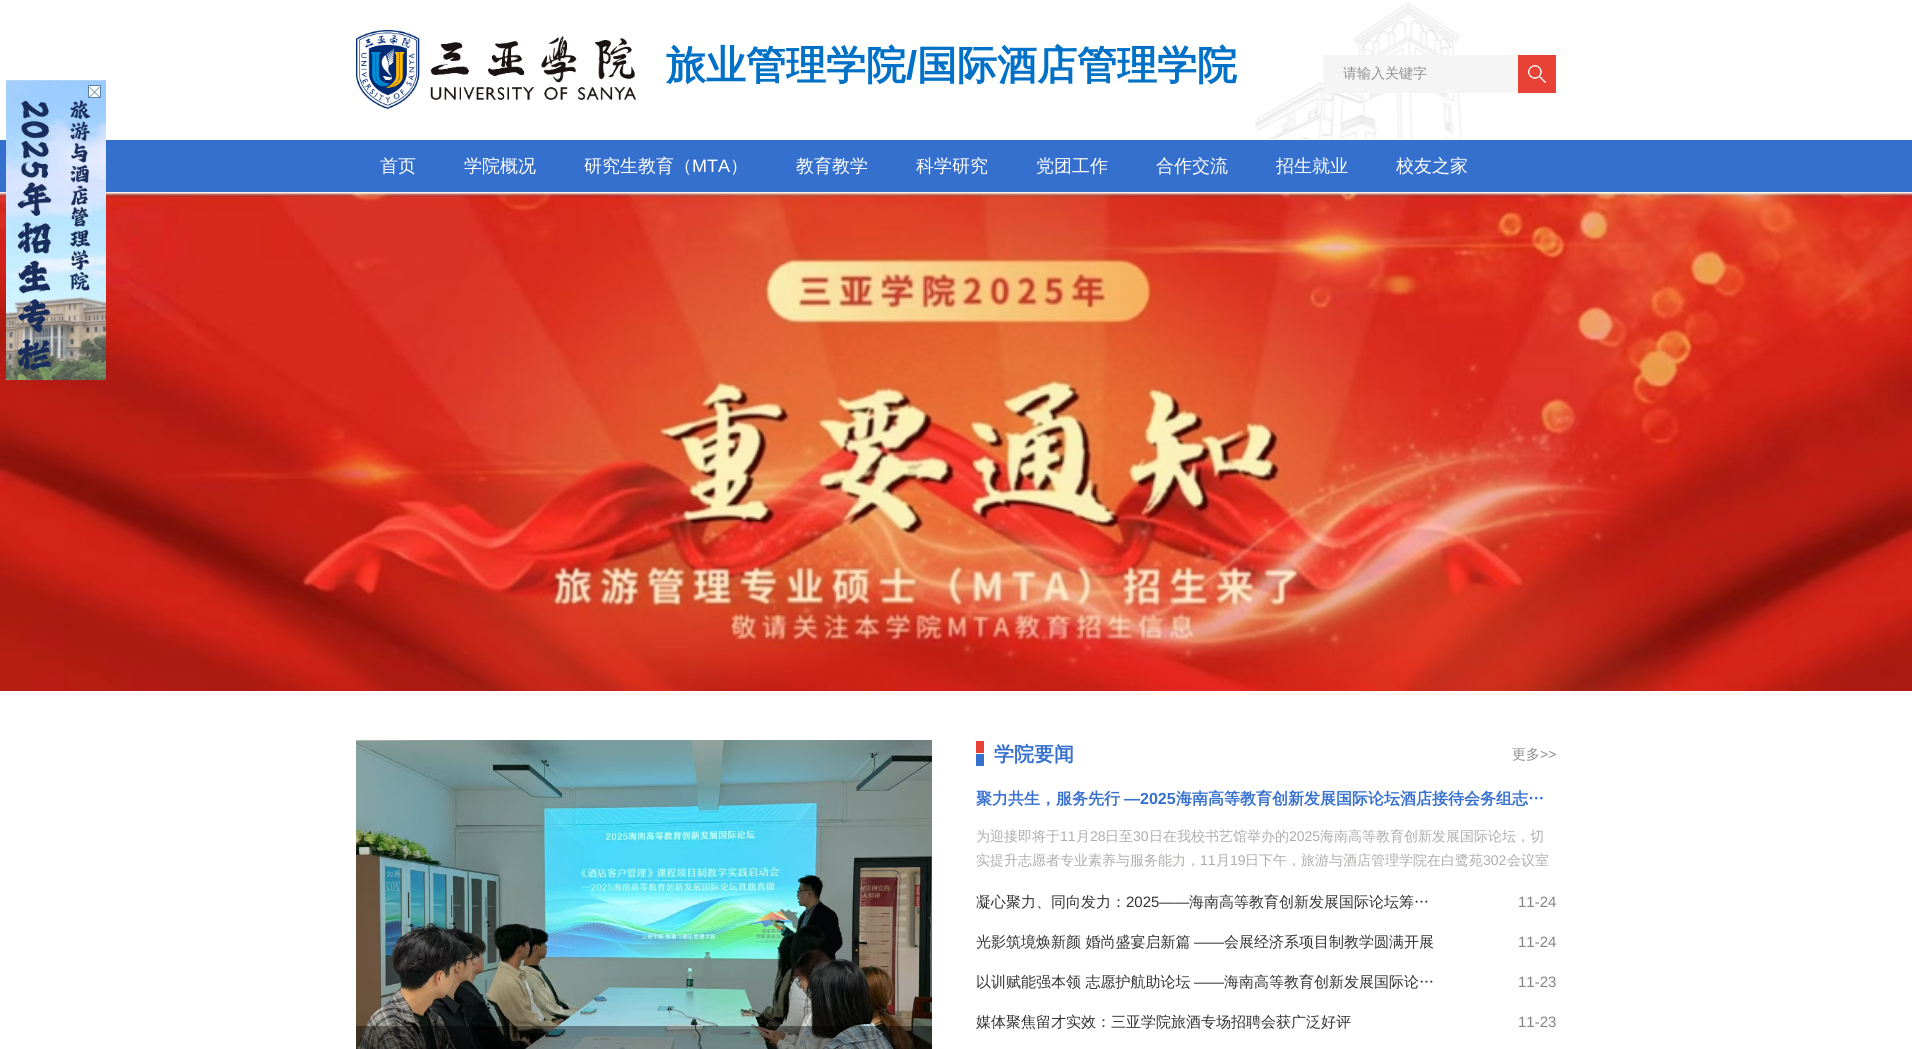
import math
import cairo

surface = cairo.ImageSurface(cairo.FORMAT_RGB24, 1912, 1049)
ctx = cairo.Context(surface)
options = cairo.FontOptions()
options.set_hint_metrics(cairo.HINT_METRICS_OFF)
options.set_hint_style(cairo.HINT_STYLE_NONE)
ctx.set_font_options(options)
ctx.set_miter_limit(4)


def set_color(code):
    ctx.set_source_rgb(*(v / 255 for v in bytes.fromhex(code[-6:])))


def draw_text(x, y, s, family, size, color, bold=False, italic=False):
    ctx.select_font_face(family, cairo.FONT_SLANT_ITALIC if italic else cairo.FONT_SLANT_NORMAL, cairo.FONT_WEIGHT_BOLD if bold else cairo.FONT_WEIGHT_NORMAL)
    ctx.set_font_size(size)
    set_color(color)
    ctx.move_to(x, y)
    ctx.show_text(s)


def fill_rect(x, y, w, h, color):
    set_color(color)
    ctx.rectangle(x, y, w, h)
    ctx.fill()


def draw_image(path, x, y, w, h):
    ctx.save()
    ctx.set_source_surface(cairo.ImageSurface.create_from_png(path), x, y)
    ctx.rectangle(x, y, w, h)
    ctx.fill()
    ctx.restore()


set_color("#ffffff")
ctx.paint()
draw_image("assets/img1.png", 1254, 3, 208, 136)
draw_image("assets/img2.png", 356, 30, 280, 79)
draw_text(666, 79, "旅业管理学院", "WenQuanYi Zen Hei", 40, "#0071c6", bold=True)
draw_text(906, 79, "/", "Liberation Sans", 40, "#0071c6", bold=True)
draw_text(917, 79, "国际酒店管理学院", "WenQuanYi Zen Hei", 40, "#0071c6", bold=True)
fill_rect(1323, 55, 195, 38, "#f5f5f5")
draw_text(1343, 78, "请输入关键字", "WenQuanYi Zen Hei Medium", 14, "#8f8f8f")
fill_rect(1518, 55, 38, 38, "#e74235")
draw_image("assets/img3.png", 1528, 65, 18, 18)
fill_rect(0, 140, 1912, 52, "#3670cf")
draw_image("assets/img6.png", 0, 192, 1912, 499)
draw_image("assets/img4.png", 6, 80, 100, 300)
draw_image("assets/img5.png", 88, 85, 13, 13)
draw_text(380, 172, "首页", "WenQuanYi Zen Hei Medium", 18, "#ffffff")
draw_text(464, 172, "学院概况", "WenQuanYi Zen Hei Medium", 18, "#ffffff")
draw_text(584, 172, "研究生教育（", "WenQuanYi Zen Hei Medium", 18, "#ffffff")
draw_text(692, 172, "MTA", "Liberation Sans", 18, "#ffffff")
draw_text(730, 172, "）", "WenQuanYi Zen Hei Medium", 18, "#ffffff")
draw_text(796, 172, "教育教学", "WenQuanYi Zen Hei Medium", 18, "#ffffff")
draw_text(916, 172, "科学研究", "WenQuanYi Zen Hei Medium", 18, "#ffffff")
draw_text(1036, 172, "党团工作", "WenQuanYi Zen Hei Medium", 18, "#ffffff")
draw_text(1156, 172, "合作交流", "WenQuanYi Zen Hei Medium", 18, "#ffffff")
draw_text(1276, 172, "招生就业", "WenQuanYi Zen Hei Medium", 18, "#ffffff")
draw_text(1396, 172, "校友之家", "WenQuanYi Zen Hei Medium", 18, "#ffffff")
draw_image("assets/img7.png", 356, 740, 576, 309)
ctx.set_source_rgba(0, 0, 0, 0.4)
ctx.rectangle(356, 1026, 576, 23)
ctx.fill()
draw_image("assets/img8.png", 976, 741, 8, 25)
draw_text(994, 761, "学院要闻", "WenQuanYi Zen Hei", 20, "#3670cf", bold=True)
draw_text(1512, 759, "更多", "WenQuanYi Zen Hei Medium", 14, "#8f8f8f")
draw_text(1540, 759, ">>", "Liberation Sans", 14, "#8f8f8f")
draw_text(976, 804, "聚力共生，服务先行", "WenQuanYi Zen Hei", 16, "#3670cf", bold=True)
draw_text(1124, 804, "—2025", "Liberation Sans", 16, "#3670cf", bold=True)
draw_text(1176, 804, "海南高等教育创新发展国际论坛酒店接待会务组志…", "WenQuanYi Zen Hei", 16, "#3670cf", bold=True)
draw_text(976, 841, "为迎接即将于", "WenQuanYi Zen Hei Medium", 14, "#adadac")
draw_text(1060, 841, "11", "Liberation Sans", 14, "#adadac")
draw_text(1076, 841, "月", "WenQuanYi Zen Hei Medium", 14, "#adadac")
draw_text(1090, 841, "28", "Liberation Sans", 14, "#adadac")
draw_text(1105, 841, "日至", "WenQuanYi Zen Hei Medium", 14, "#adadac")
draw_text(1133, 841, "30", "Liberation Sans", 14, "#adadac")
draw_text(1149, 841, "日在我校书艺馆举办的", "WenQuanYi Zen Hei Medium", 14, "#adadac")
draw_text(1289, 841, "2025", "Liberation Sans", 14, "#adadac")
draw_text(1320, 841, "海南高等教育创新发展国际论坛，切", "WenQuanYi Zen Hei Medium", 14, "#adadac")
draw_text(976, 865, "实提升志愿者专业素养与服务能力，", "WenQuanYi Zen Hei Medium", 14, "#adadac")
draw_text(1200, 865, "11", "Liberation Sans", 14, "#adadac")
draw_text(1216, 865, "月", "WenQuanYi Zen Hei Medium", 14, "#adadac")
draw_text(1230, 865, "19", "Liberation Sans", 14, "#adadac")
draw_text(1245, 865, "日下午，旅游与酒店管理学院在白鹭苑", "WenQuanYi Zen Hei Medium", 14, "#adadac")
draw_text(1483, 865, "302", "Liberation Sans", 14, "#adadac")
draw_text(1507, 865, "会议室", "WenQuanYi Zen Hei Medium", 14, "#adadac")
draw_text(976, 907, "凝心聚力、同向发力：", "WenQuanYi Zen Hei Medium", 15, "#333333")
draw_text(1126, 907, "2025——", "Liberation Sans", 15, "#333333")
draw_text(1189, 907, "海南高等教育创新发展国际论坛筹…", "WenQuanYi Zen Hei Medium", 15, "#333333")
draw_text(1518, 907, "11-24", "Liberation Sans", 15, "#848484")
draw_text(976, 947, "光影筑境焕新颜 婚尚盛宴启新篇", "WenQuanYi Zen Hei Medium", 15, "#333333")
draw_text(1194, 947, "——", "Liberation Sans", 15, "#333333")
draw_text(1224, 947, "会展经济系项目制教学圆满开展", "WenQuanYi Zen Hei Medium", 15, "#333333")
draw_text(1518, 947, "11-24", "Liberation Sans", 15, "#848484")
draw_text(976, 987, "以训赋能强本领 志愿护航助论坛", "WenQuanYi Zen Hei Medium", 15, "#333333")
draw_text(1194, 987, "——", "Liberation Sans", 15, "#333333")
draw_text(1224, 987, "海南高等教育创新发展国际论…", "WenQuanYi Zen Hei Medium", 15, "#333333")
draw_text(1518, 987, "11-23", "Liberation Sans", 15, "#848484")
draw_text(976, 1027, "媒体聚焦留才实效：三亚学院旅酒专场招聘会获广泛好评", "WenQuanYi Zen Hei Medium", 15, "#333333")
draw_text(1518, 1027, "11-23", "Liberation Sans", 15, "#848484")
surface.write_to_png("output.png")
